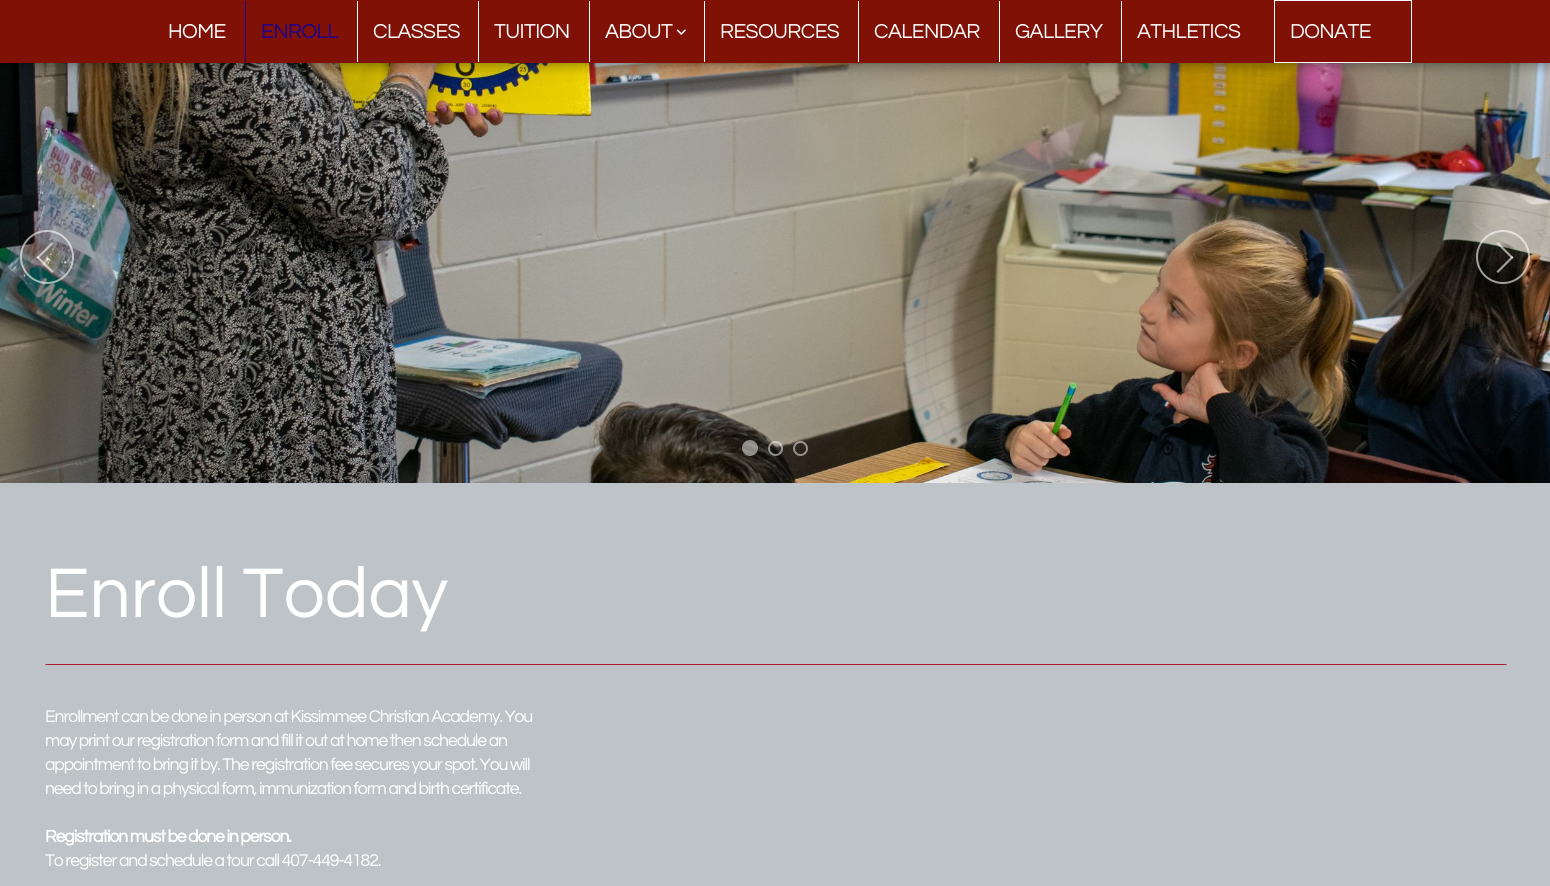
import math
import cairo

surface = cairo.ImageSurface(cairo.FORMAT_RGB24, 1550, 886)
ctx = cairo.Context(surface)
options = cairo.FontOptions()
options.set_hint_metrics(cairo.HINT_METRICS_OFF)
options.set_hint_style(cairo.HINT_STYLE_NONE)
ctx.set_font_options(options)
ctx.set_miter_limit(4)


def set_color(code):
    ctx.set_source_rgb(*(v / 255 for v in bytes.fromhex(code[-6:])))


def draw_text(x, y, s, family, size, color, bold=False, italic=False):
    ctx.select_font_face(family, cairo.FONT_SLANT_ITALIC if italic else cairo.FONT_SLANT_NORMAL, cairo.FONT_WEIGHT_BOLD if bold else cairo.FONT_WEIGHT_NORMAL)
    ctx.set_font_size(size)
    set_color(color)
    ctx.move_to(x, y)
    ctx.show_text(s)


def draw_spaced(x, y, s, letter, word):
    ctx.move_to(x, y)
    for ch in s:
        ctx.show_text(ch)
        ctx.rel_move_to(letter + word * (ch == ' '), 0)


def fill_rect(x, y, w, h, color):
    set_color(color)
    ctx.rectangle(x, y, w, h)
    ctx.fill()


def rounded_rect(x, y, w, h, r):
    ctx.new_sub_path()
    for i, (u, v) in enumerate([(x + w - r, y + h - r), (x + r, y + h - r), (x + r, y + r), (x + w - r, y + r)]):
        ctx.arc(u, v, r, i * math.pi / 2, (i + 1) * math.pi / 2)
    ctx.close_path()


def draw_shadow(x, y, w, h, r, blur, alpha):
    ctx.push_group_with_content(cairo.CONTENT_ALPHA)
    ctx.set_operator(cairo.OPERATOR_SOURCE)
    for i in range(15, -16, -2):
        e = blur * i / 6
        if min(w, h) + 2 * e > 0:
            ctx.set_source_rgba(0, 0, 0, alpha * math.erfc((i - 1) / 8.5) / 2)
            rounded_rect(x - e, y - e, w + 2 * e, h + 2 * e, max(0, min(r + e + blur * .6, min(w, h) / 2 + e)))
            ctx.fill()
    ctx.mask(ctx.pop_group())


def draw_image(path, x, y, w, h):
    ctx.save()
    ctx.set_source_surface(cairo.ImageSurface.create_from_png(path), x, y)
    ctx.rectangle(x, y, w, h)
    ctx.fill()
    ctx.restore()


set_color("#ffffff")
ctx.paint()
draw_image("assets/img2.png", 0, 63, 1550, 420)
set_color("#000000")
draw_shadow(0, 0, 1550, 63, 0, 7.5, 0.5)
fill_rect(0, 0, 1550, 63, "#7f1106")
ctx.select_font_face("Questrial")
ctx.set_font_size(21)
set_color("#ffffff")
draw_spaced(168, 38, "HOME", -0.6, 0)
fill_rect(245, 1, 1, 61, "#1b008f")
draw_spaced(261, 38, "ENROLL", -0.6, 0)
fill_rect(357, 1, 1, 61, "#ffffff")
draw_spaced(373, 38, "CLASSES", -0.6, 0)
fill_rect(478, 1, 1, 61, "#ffffff")
draw_spaced(494, 38, "TUITION", -0.6, 0)
fill_rect(589, 1, 1, 61, "#ffffff")
draw_spaced(605, 38, "ABOUT", -0.6, 0)
draw_image("assets/img1.png", 676, 29, 10, 6)
fill_rect(704, 1, 1, 61, "#ffffff")
draw_spaced(720, 38, "RESOURCES", -0.6, 0)
fill_rect(858, 1, 1, 61, "#ffffff")
draw_spaced(874, 38, "CALENDAR", -0.6, 0)
fill_rect(999, 1, 1, 61, "#ffffff")
draw_spaced(1015, 38, "GALLERY", -0.6, 0)
fill_rect(1121, 1, 1, 61, "#ffffff")
draw_spaced(1137, 38, "ATHLETICS", -0.6, 0)
ctx.rectangle(1274.5, 0.5, 137, 62)
ctx.set_line_width(1)
ctx.stroke()
draw_spaced(1290, 38, "DONATE", -0.6, 0)
ctx.new_path()
ctx.arc(47, 257, 26, 0, 2 * math.pi)
ctx.set_source_rgba(1, 1, 1, 0.6)
ctx.set_line_width(2)
ctx.stroke()
ctx.new_path()
ctx.move_to(36.5, 257.5)
ctx.line_to(52, 242)
ctx.line_to(53.5, 243.5)
ctx.line_to(38, 259)
ctx.close_path()
ctx.fill()
ctx.new_path()
ctx.move_to(36.5, 257.5)
ctx.line_to(38, 256)
ctx.line_to(53.5, 271.5)
ctx.line_to(52, 273)
ctx.close_path()
ctx.fill()
ctx.arc(1503, 257, 26, 0, 2 * math.pi)
ctx.stroke()
ctx.new_path()
ctx.move_to(1513.5, 257.5)
ctx.line_to(1498, 273)
ctx.line_to(1496.5, 271.5)
ctx.line_to(1512, 256)
ctx.close_path()
ctx.fill()
ctx.new_path()
ctx.move_to(1513.5, 257.5)
ctx.line_to(1512, 259)
ctx.line_to(1496.5, 243.5)
ctx.line_to(1498, 242)
ctx.close_path()
ctx.fill()
ctx.set_source_rgba(1, 1, 1, 0.5)
ctx.arc(750, 448, 8, 0, 2 * math.pi)
ctx.fill()
ctx.arc(775.5, 448.5, 6.5, 0, 2 * math.pi)
ctx.stroke()
ctx.arc(800.5, 448.5, 6.5, 0, 2 * math.pi)
ctx.stroke()
fill_rect(0, 483, 1550, 403, "#bdc3c7")
draw_text(45, 617, "Enroll Today", "Questrial", 73, "#ffffff")
set_color("#a81f30")
ctx.new_path()
ctx.move_to(1507, 665)
ctx.line_to(45, 665)
ctx.line_to(46, 664)
ctx.line_to(1506, 664)
ctx.close_path()
ctx.fill()
ctx.set_font_size(17.6)
set_color("#ffffff")
draw_spaced(45, 722, "Enrollment can be done in person at Kissimmee Christian Academy. You", -1.12, 0)
draw_spaced(45, 746, "may print our registration form and fill it out at home then schedule an", -1.12, 0)
draw_spaced(45, 770, "appointment to bring it by. The registration fee secures your spot. You will", -1.12, 0)
draw_spaced(45, 794, "need to bring in a physical form, immunization form and birth certificate.", -1.12, 0)
ctx.select_font_face("Questrial", cairo.FONT_SLANT_NORMAL, cairo.FONT_WEIGHT_BOLD)
draw_spaced(45, 842, "Registration must be done in person.", -1.12, 0)
ctx.select_font_face("Questrial")
draw_spaced(45, 866, "To register and schedule a tour call 407-449-4182.", -1.12, 0)
surface.write_to_png("output.png")
